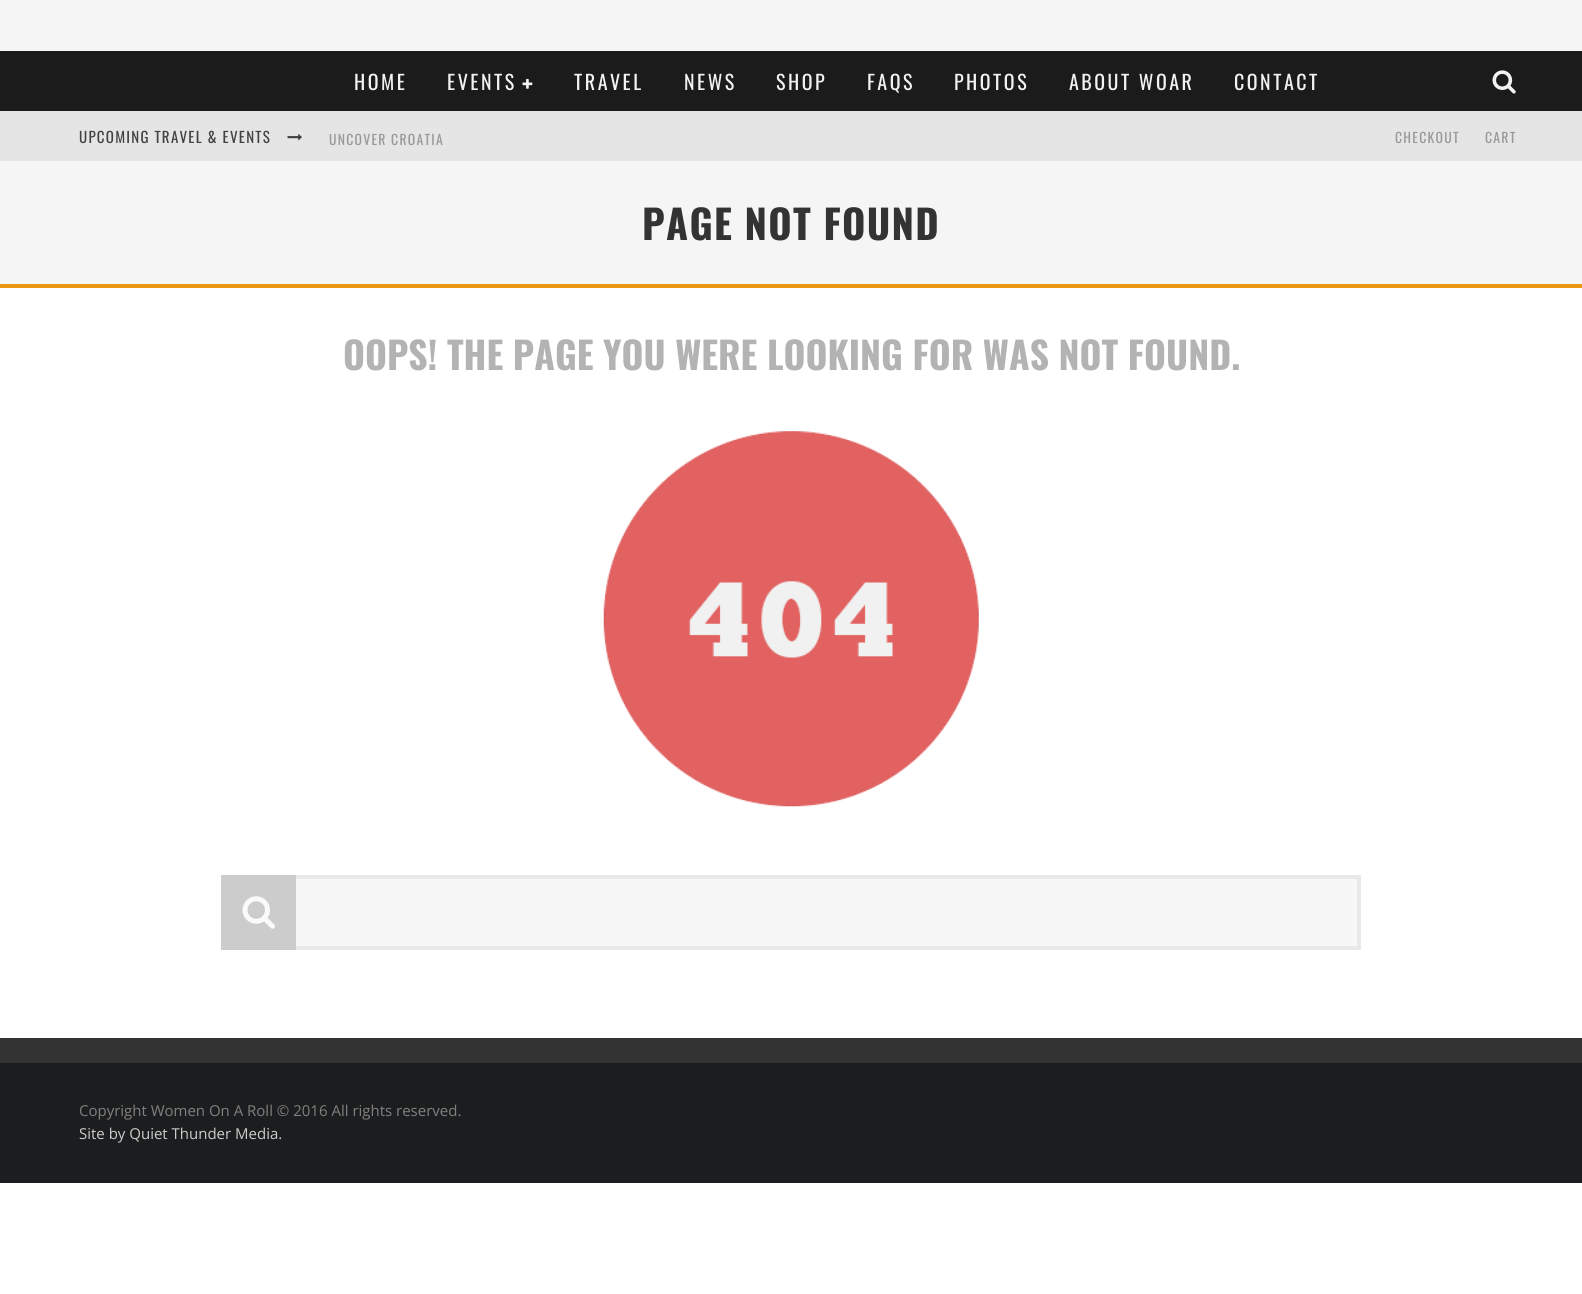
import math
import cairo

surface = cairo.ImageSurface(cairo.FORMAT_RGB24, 1582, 1294)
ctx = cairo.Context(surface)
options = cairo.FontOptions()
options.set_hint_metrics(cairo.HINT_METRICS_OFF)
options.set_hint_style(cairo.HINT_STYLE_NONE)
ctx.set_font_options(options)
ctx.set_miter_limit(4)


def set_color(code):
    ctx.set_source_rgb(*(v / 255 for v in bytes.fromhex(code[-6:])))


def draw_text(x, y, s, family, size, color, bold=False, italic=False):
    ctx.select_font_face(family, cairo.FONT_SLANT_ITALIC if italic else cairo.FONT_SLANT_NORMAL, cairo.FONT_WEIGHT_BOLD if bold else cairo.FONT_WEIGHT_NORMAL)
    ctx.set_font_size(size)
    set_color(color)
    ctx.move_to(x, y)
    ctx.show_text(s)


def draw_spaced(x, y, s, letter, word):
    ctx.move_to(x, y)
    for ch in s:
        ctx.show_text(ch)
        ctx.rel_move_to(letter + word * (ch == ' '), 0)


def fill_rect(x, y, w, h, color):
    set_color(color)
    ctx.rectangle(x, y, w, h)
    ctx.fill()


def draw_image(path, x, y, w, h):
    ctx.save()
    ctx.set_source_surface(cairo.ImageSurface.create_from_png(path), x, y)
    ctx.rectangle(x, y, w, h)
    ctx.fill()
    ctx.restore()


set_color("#ffffff")
ctx.paint()
fill_rect(0, 0, 1582, 51, "#f5f5f5")
fill_rect(0, 51, 1582, 60, "#1b1b1b")
ctx.select_font_face("Oswald")
ctx.set_font_size(20)
set_color("#f2f2f2")
draw_spaced(354, 90, "HOME", 2.5, 0)
draw_spaced(447, 90, "EVENTS", 2.5, 0)
draw_image("assets/img1.png", 522, 78, 11, 11)
draw_spaced(574, 90, "TRAVEL", 2.5, 0)
draw_spaced(684, 90, "NEWS", 2.5, 0)
draw_spaced(776, 90, "SHOP", 2.5, 0)
draw_spaced(867, 90, "FAQS", 2.5, 0)
draw_spaced(954, 90, "PHOTOS", 2.5, 0)
draw_spaced(1069, 90, "ABOUT WOAR", 2.5, 0)
draw_spaced(1234, 90, "CONTACT", 2.5, 0)
draw_image("assets/img2.png", 1492, 70, 24, 24)
fill_rect(0, 111, 1582, 50, "#e5e5e5")
ctx.set_font_size(15)
set_color("#424242")
draw_spaced(79, 143, "UPCOMING TRAVEL & EVENTS", 1.25, 0)
draw_image("assets/img3.png", 287, 134, 15, 7)
ctx.set_font_size(13.75)
set_color("#999999")
draw_spaced(329, 145, "UNCOVER CROATIA", 1.25, 0)
draw_spaced(1395, 143, "CHECKOUT", 1.25, 0)
draw_spaced(1485, 143, "CART", 1.25, 0)
fill_rect(0, 161, 1582, 123, "#f5f5f5")
fill_rect(0, 284, 1582, 4, "#eb9812")
ctx.select_font_face("Oswald", cairo.FONT_SLANT_NORMAL, cairo.FONT_WEIGHT_BOLD)
ctx.set_font_size(40)
set_color("#333333")
draw_spaced(642, 240, "PAGE NOT FOUND", 1.25, 0)
draw_text(343, 370, "OOPS! THE PAGE YOU WERE LOOKING FOR WAS NOT FOUND.", "Oswald", 37.5, "#b3b3b3", bold=True)
draw_image("assets/img4.png", 603, 431, 376, 376)
fill_rect(296, 879, 1061, 67, "#f7f7f7")
ctx.rectangle(223, 877, 1136, 71)
set_color("#e9e9e9")
ctx.set_line_width(4)
ctx.stroke()
fill_rect(221, 875, 75, 75, "#cccccc")
draw_image("assets/img5.png", 242, 896, 33, 33)
fill_rect(0, 1038, 1582, 25, "#333333")
fill_rect(0, 1063, 1582, 120, "#1c1d1e")
draw_text(79, 1116, "Copyright Women On A Roll © 2016 All rights reserved.", "Open Sans", 15, "#808080")
draw_text(79, 1139, "Site by Quiet Thunder Media.", "Open Sans", 15, "#cccccc")
surface.write_to_png("output.png")
